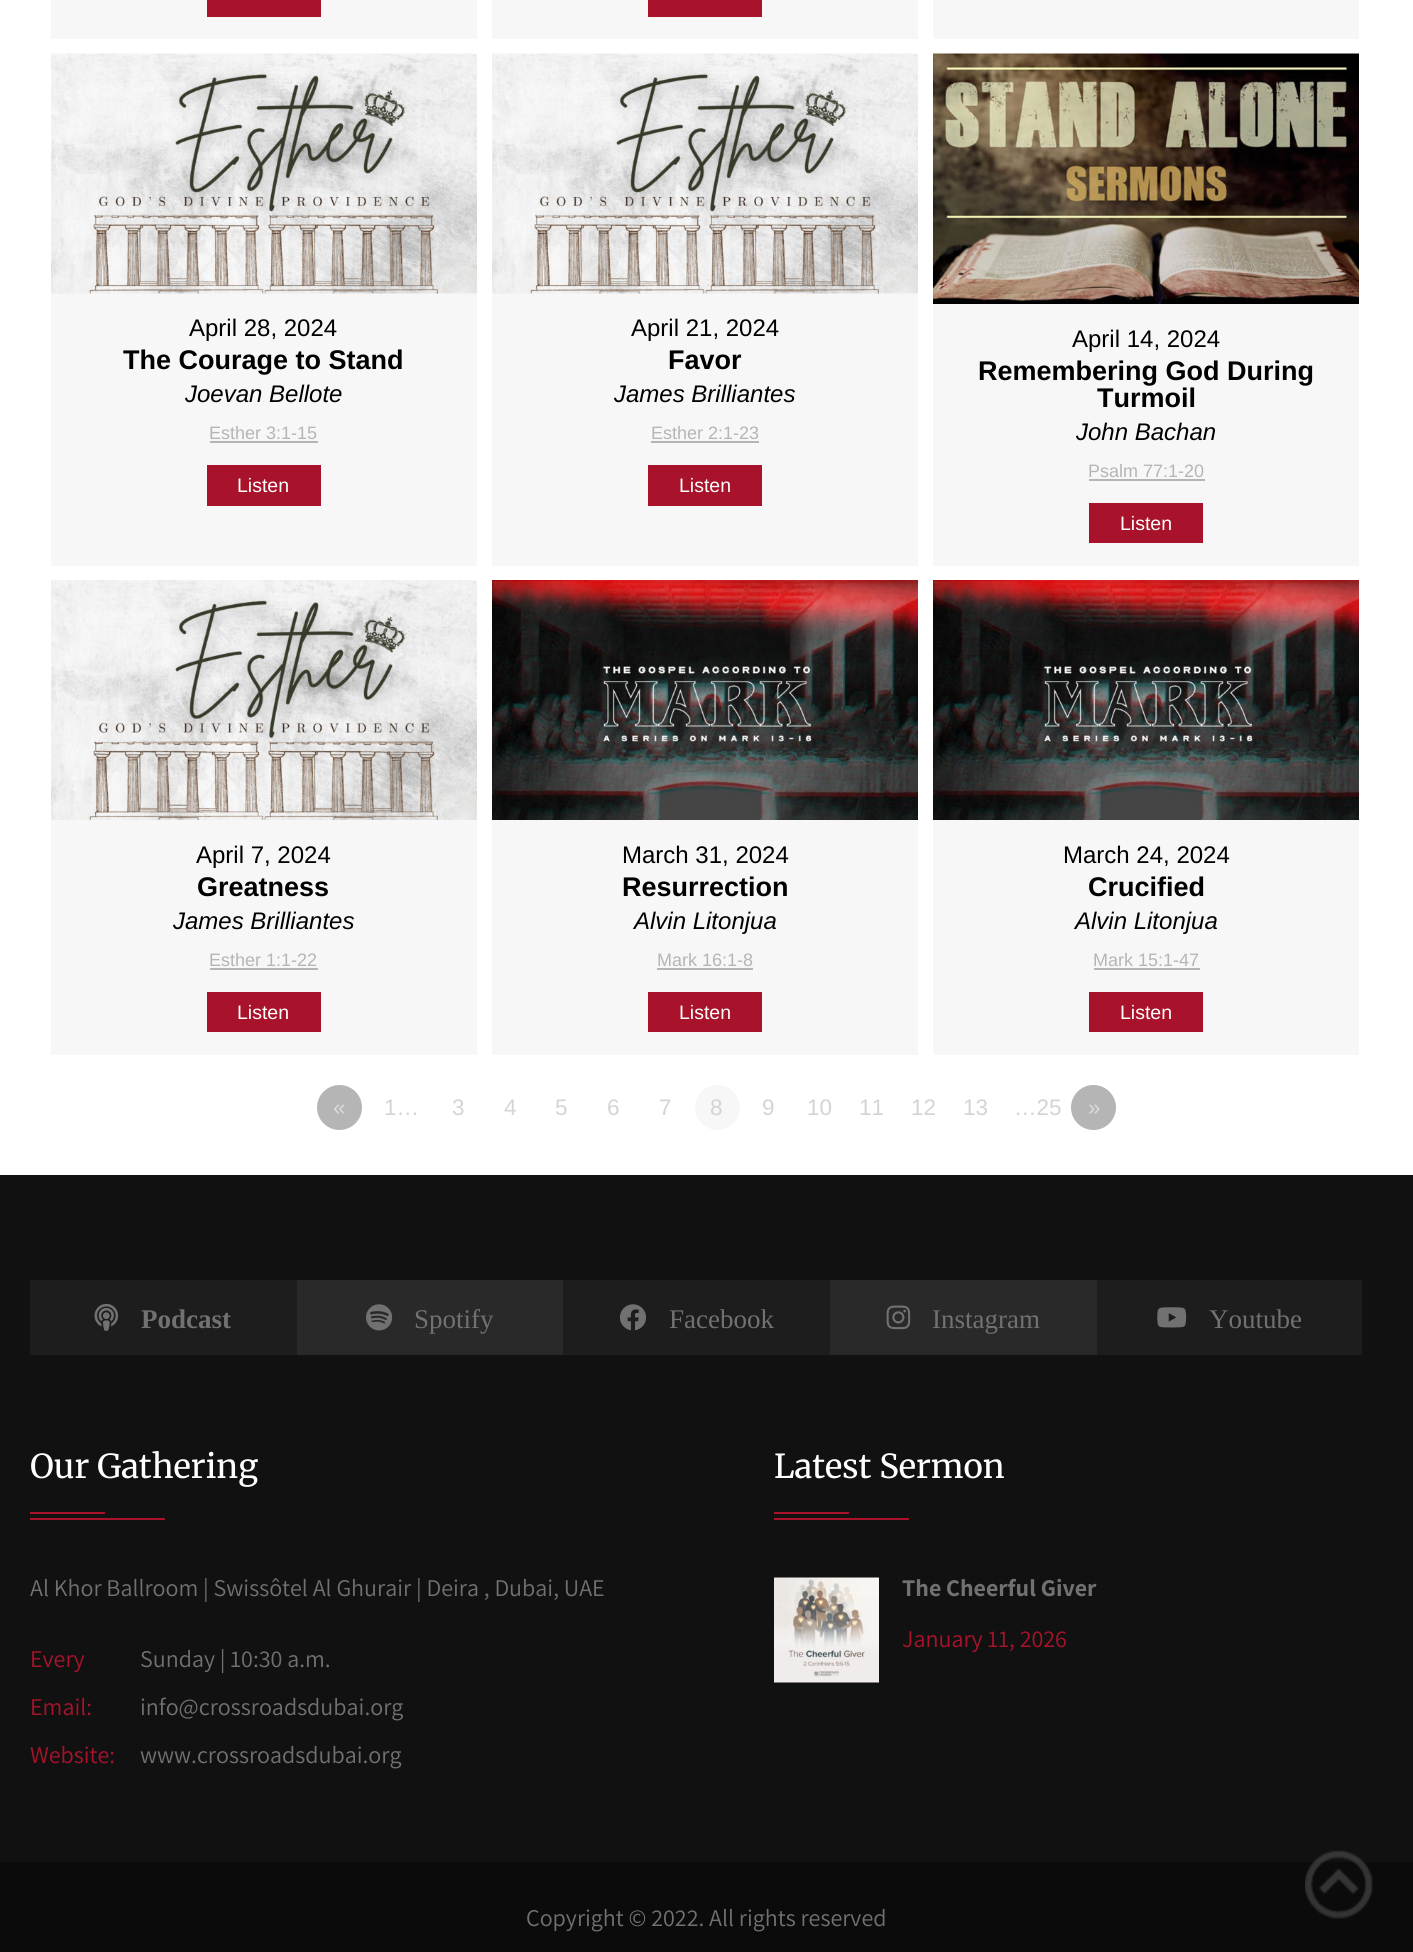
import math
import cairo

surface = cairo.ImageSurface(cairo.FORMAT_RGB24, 1413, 1952)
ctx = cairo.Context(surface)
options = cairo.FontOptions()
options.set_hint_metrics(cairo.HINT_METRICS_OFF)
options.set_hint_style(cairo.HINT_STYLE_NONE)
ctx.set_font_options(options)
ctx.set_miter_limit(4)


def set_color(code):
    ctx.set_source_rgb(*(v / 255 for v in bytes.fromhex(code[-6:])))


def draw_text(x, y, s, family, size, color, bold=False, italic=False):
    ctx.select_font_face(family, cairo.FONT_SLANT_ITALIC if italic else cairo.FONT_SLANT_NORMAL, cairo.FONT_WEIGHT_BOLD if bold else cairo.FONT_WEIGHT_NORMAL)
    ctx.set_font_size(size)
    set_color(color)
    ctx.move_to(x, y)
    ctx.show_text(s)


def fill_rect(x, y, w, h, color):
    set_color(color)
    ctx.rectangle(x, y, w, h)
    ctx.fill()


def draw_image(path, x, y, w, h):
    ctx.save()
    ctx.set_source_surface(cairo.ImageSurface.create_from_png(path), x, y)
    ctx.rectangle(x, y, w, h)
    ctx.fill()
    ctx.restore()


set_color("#ffffff")
ctx.paint()
fill_rect(51, 0, 426, 39, "#f7f7f7")
fill_rect(207, 0, 114, 17, "#a8132b")
fill_rect(492, 0, 426, 39, "#f7f7f7")
fill_rect(648, 0, 114, 17, "#a8132b")
fill_rect(933, 0, 426, 39, "#f7f7f7")
fill_rect(51, 293, 426, 273, "#f7f7f7")
draw_image("assets/img1.png", 51, 53, 426, 241)
draw_text(189, 336, "April 28, 2024", "Liberation Sans", 24, "#000000")
draw_text(123, 369, "The Courage to Stand", "Liberation Sans", 27, "#000000", bold=True)
draw_text(185, 402, "Joevan Bellote", "Liberation Sans", 24, "#000000", italic=True)
draw_text(209, 439, "Esther 3:1-15", "Liberation Sans", 18, "#b6b5b5")
fill_rect(210, 441, 108, 2, "#b6b5b5")
fill_rect(207, 465, 114, 41, "#a8132b")
draw_text(237, 492, "Listen", "Liberation Sans", 19.5, "#ffffff")
fill_rect(492, 293, 426, 273, "#f7f7f7")
draw_image("assets/img2.png", 492, 53, 426, 241)
draw_text(631, 336, "April 21, 2024", "Liberation Sans", 24, "#000000")
draw_text(668, 369, "Favor", "Liberation Sans", 27, "#000000", bold=True)
draw_text(614, 402, "James Brilliantes", "Liberation Sans", 24, "#000000", italic=True)
draw_text(651, 439, "Esther 2:1-23", "Liberation Sans", 18, "#b6b5b5")
fill_rect(651, 441, 108, 2, "#b6b5b5")
fill_rect(648, 465, 114, 41, "#a8132b")
draw_text(679, 492, "Listen", "Liberation Sans", 19.5, "#ffffff")
fill_rect(933, 304, 426, 262, "#f7f7f7")
draw_image("assets/img3.png", 933, 53, 426, 251)
draw_text(1072, 347, "April 14, 2024", "Liberation Sans", 24, "#000000")
draw_text(978, 380, "Remembering God During", "Liberation Sans", 27, "#000000", bold=True)
draw_text(1097, 407, "Turmoil", "Liberation Sans", 27, "#000000", bold=True)
draw_text(1076, 440, "John Bachan", "Liberation Sans", 24, "#000000", italic=True)
draw_text(1088, 477, "Psalm 77:1-20", "Liberation Sans", 18, "#b6b5b5")
fill_rect(1089, 479, 116, 2, "#b6b5b5")
fill_rect(1089, 503, 114, 40, "#a8132b")
draw_text(1120, 530, "Listen", "Liberation Sans", 19.5, "#ffffff")
fill_rect(51, 820, 426, 235, "#f7f7f7")
draw_image("assets/img4.png", 51, 580, 426, 240)
draw_text(196, 863, "April 7, 2024", "Liberation Sans", 24, "#000000")
draw_text(197, 896, "Greatness", "Liberation Sans", 27, "#000000", bold=True)
draw_text(173, 929, "James Brilliantes", "Liberation Sans", 24, "#000000", italic=True)
draw_text(209, 966, "Esther 1:1-22", "Liberation Sans", 18, "#b6b5b5")
fill_rect(210, 968, 108, 2, "#b6b5b5")
fill_rect(207, 992, 114, 40, "#a8132b")
draw_text(237, 1019, "Listen", "Liberation Sans", 19.5, "#ffffff")
fill_rect(492, 820, 426, 235, "#f7f7f7")
draw_image("assets/img5.png", 492, 580, 426, 240)
draw_text(622, 863, "March 31, 2024", "Liberation Sans", 24, "#000000")
draw_text(622, 896, "Resurrection", "Liberation Sans", 27, "#000000", bold=True)
draw_text(634, 929, "Alvin Litonjua", "Liberation Sans", 24, "#000000", italic=True)
draw_text(657, 966, "Mark 16:1-8", "Liberation Sans", 18, "#b6b5b5")
fill_rect(657, 968, 96, 2, "#b6b5b5")
fill_rect(648, 992, 114, 40, "#a8132b")
draw_text(679, 1019, "Listen", "Liberation Sans", 19.5, "#ffffff")
fill_rect(933, 820, 426, 235, "#f7f7f7")
draw_image("assets/img6.png", 933, 580, 426, 240)
draw_text(1063, 863, "March 24, 2024", "Liberation Sans", 24, "#000000")
draw_text(1088, 896, "Crucified", "Liberation Sans", 27, "#000000", bold=True)
draw_text(1075, 929, "Alvin Litonjua", "Liberation Sans", 24, "#000000", italic=True)
draw_text(1093, 966, "Mark 15:1-47", "Liberation Sans", 18, "#b6b5b5")
fill_rect(1094, 968, 106, 2, "#b6b5b5")
fill_rect(1089, 992, 114, 40, "#a8132b")
draw_text(1120, 1019, "Listen", "Liberation Sans", 19.5, "#ffffff")
set_color("#b6b5b5")
ctx.new_path()
ctx.arc(339.5, 1107.5, 22.5, 0, 2 * math.pi)
ctx.fill()
draw_text(333, 1115, "«", "Liberation Sans", 22.5, "#dbdbdb")
draw_text(384, 1115, "1…", "Liberation Sans", 22.5, "#d4d4d4")
draw_text(452, 1115, "3", "Liberation Sans", 22.5, "#d4d4d4")
draw_text(504, 1115, "4", "Liberation Sans", 22.5, "#d4d4d4")
draw_text(555, 1115, "5", "Liberation Sans", 22.5, "#d4d4d4")
draw_text(607, 1115, "6", "Liberation Sans", 22.5, "#d4d4d4")
draw_text(659, 1115, "7", "Liberation Sans", 22.5, "#d4d4d4")
set_color("#f7f7f7")
ctx.new_path()
ctx.arc(717.5, 1107.5, 22.5, 0, 2 * math.pi)
ctx.fill()
draw_text(710, 1115, "8", "Liberation Sans", 22.5, "#d4d4d4")
draw_text(762, 1115, "9", "Liberation Sans", 22.5, "#d4d4d4")
draw_text(807, 1115, "10", "Liberation Sans", 22.5, "#d4d4d4")
draw_text(859, 1115, "11", "Liberation Sans", 22.5, "#d4d4d4")
draw_text(911, 1115, "12", "Liberation Sans", 22.5, "#d4d4d4")
draw_text(963, 1115, "13", "Liberation Sans", 22.5, "#d4d4d4")
draw_text(1014, 1115, "…25", "Liberation Sans", 22.5, "#d4d4d4")
set_color("#b6b5b5")
ctx.new_path()
ctx.arc(1093.5, 1107.5, 22.5, 0, 2 * math.pi)
ctx.fill()
draw_text(1088, 1115, "»", "Liberation Sans", 22.5, "#dbdbdb")
fill_rect(0, 1175, 1413, 687, "#111111")
fill_rect(30, 1280, 267, 75, "#1d1d1d")
draw_image("assets/img7.png", 94, 1303, 25, 28)
draw_text(141, 1328, "Podcast", "Liberation Serif", 27, "#717171", bold=True)
fill_rect(297, 1280, 266, 75, "#292929")
draw_image("assets/img8.png", 366, 1304, 27, 27)
draw_text(414, 1328, "Spotify", "Liberation Serif", 27, "#717171")
fill_rect(563, 1280, 267, 75, "#1d1d1d")
draw_image("assets/img9.png", 619, 1304, 28, 27)
draw_text(669, 1328, "Facebook", "Liberation Serif", 27, "#717171")
fill_rect(830, 1280, 267, 75, "#292929")
draw_image("assets/img10.png", 886, 1305, 25, 25)
draw_text(932, 1328, "Instagram", "Liberation Serif", 27, "#717171")
fill_rect(1097, 1280, 265, 75, "#1d1d1d")
draw_image("assets/img11.png", 1157, 1307, 30, 21)
draw_text(1209, 1328, "Youtube", "Liberation Serif", 27, "#717171")
draw_text(30, 1478, "Our Gathering", "Merriweather", 33, "#ffffff")
fill_rect(30, 1512, 75, 2, "#a8132b")
fill_rect(30, 1518, 135, 2, "#a8132b")
draw_text(30, 1596, "Al Khor Ballroom | Swissôtel Al Ghurair | Deira , Dubai, UAE", "Assistant", 24, "#717171")
draw_text(30, 1667, "Every", "Assistant", 24, "#a8132b")
draw_text(140, 1667, "Sunday | 10:30 a.m.", "Assistant", 24, "#717171")
draw_text(30, 1715, "Email:", "Assistant", 24, "#a8132b")
draw_text(140, 1715, "info@crossroadsdubai.org", "Assistant", 24, "#717171")
draw_text(30, 1763, "Website:", "Assistant", 24, "#a8132b")
draw_text(140, 1763, "www.crossroadsdubai.org", "Assistant", 24, "#717171")
draw_text(774, 1478, "Latest Sermon", "Merriweather", 33, "#ffffff")
fill_rect(774, 1512, 75, 2, "#a8132b")
fill_rect(774, 1518, 135, 2, "#a8132b")
draw_image("assets/img12.png", 774, 1577, 105, 106)
draw_text(902, 1596, "The Cheerful Giver", "Assistant", 24, "#717171", bold=True)
draw_text(902, 1647, "January 11, 2026", "Assistant", 24, "#a8132b")
fill_rect(0, 1862, 1413, 90, "#0b0b0b")
draw_text(526, 1926, "Copyright © 2022. All rights reserved", "Assistant", 24, "#717171")
draw_image("assets/img13.png", 1305, 1850, 68, 69)
surface.write_to_png("output.png")
